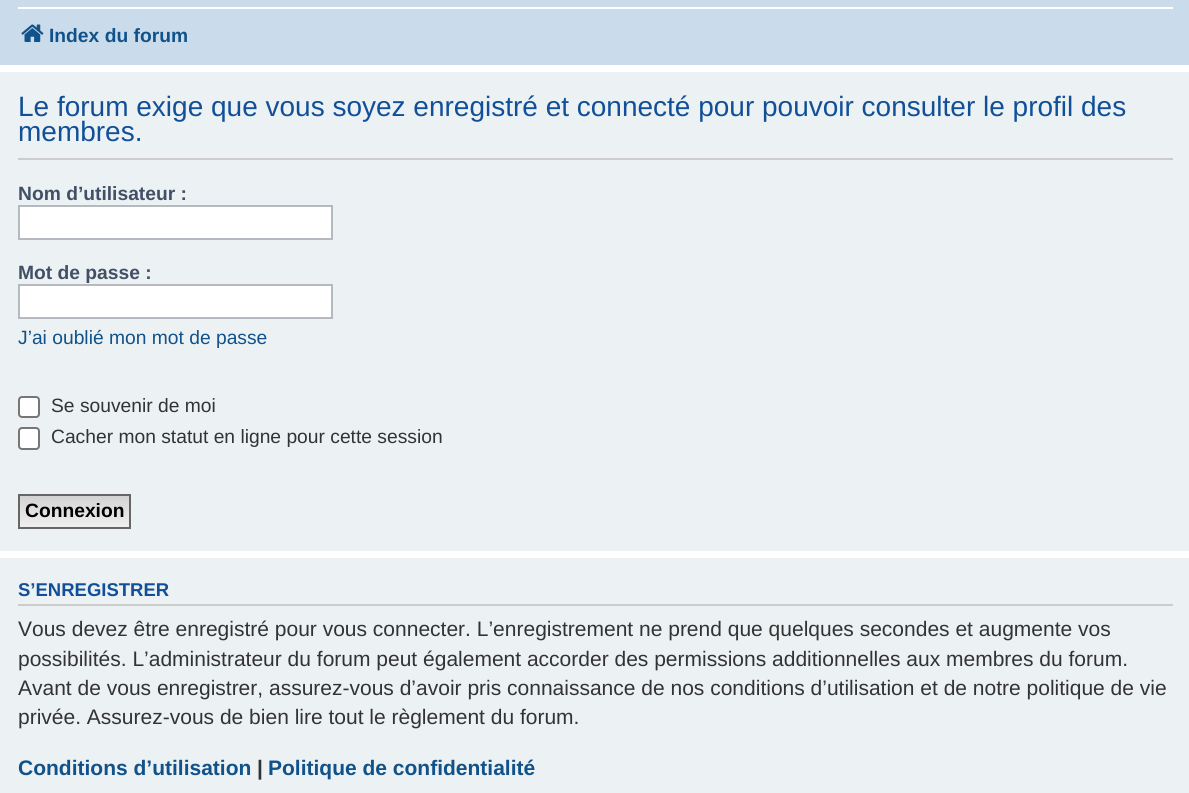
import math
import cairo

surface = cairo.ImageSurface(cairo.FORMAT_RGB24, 1189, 793)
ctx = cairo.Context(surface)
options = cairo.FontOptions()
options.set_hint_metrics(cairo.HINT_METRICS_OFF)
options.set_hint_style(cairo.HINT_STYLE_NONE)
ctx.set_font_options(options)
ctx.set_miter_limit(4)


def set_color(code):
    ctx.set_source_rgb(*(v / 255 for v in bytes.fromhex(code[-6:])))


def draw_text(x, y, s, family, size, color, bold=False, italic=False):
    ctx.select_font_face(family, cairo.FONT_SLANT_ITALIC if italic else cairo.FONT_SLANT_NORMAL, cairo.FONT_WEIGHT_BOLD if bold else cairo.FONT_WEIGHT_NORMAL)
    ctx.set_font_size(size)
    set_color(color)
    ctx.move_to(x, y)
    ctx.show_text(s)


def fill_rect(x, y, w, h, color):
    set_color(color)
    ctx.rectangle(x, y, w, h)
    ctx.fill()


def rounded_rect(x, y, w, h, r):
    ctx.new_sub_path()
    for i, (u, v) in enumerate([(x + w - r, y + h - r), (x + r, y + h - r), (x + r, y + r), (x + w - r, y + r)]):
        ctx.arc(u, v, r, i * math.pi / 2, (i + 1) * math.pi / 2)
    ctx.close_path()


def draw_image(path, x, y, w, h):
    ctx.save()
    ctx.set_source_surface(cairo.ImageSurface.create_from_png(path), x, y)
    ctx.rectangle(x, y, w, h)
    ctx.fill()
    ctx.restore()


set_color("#ffffff")
ctx.paint()
fill_rect(0, 0, 1189, 65, "#cadceb")
fill_rect(18, 7, 1155, 2, "#ffffff")
draw_image("assets/img1.png", 21, 24, 23, 18)
draw_text(49, 42, "Index du forum", "Liberation Sans", 19.25, "#105289", bold=True)
fill_rect(0, 72, 1189, 479, "#ecf1f3")
fill_rect(18, 158, 1155, 2, "#cccccc")
draw_text(18, 116, "Le forum exige que vous soyez enregistré et connecté pour pouvoir consulter le profil des", "Liberation Sans", 28, "#115098")
draw_text(18, 141, "membres.", "Liberation Sans", 28, "#115098")
draw_text(18, 200, "Nom d’utilisateur :", "Liberation Sans", 19.25, "#425067", bold=True)
set_color("#ffffff")
ctx.rectangle(19, 206, 313, 33)
ctx.fill_preserve()
set_color("#b4bac0")
ctx.stroke()
draw_text(18, 279, "Mot de passe :", "Liberation Sans", 19.25, "#425067", bold=True)
set_color("#ffffff")
ctx.rectangle(19, 285, 313, 33)
ctx.fill_preserve()
set_color("#b4bac0")
ctx.stroke()
draw_text(18, 344, "J’ai oublié mon mot de passe", "Liberation Sans", 19.25, "#105289")
set_color("#ffffff")
rounded_rect(19, 397, 20, 20, 3)
ctx.fill_preserve()
set_color("#767676")
ctx.stroke()
draw_text(51, 412, "Se souvenir de moi", "Liberation Sans", 19.25, "#333333")
set_color("#ffffff")
rounded_rect(19, 428, 20, 21, 3)
ctx.fill_preserve()
set_color("#767676")
ctx.stroke()
draw_text(51, 443, "Cacher mon statut en ligne pour cette session", "Liberation Sans", 19.25, "#333333")
gradient = cairo.LinearGradient(74, 495, 74, 527)
gradient.add_color_stop_rgba(0, 0.824, 0.824, 0.824, 1)
gradient.add_color_stop_rgba(1, 0.937, 0.937, 0.937, 1)
ctx.set_source(gradient)
ctx.rectangle(20, 496, 109, 31)
ctx.fill()
ctx.rectangle(19, 495, 111, 33)
set_color("#666666")
ctx.stroke()
draw_text(25, 517, "Connexion", "Liberation Sans", 19.25, "#000000", bold=True)
fill_rect(0, 558, 1189, 235, "#ecf1f3")
fill_rect(18, 604, 1155, 2, "#cccccc")
draw_text(18, 596, "S’ENREGISTRER", "Liberation Sans", 18.5, "#115098", bold=True)
draw_text(18, 636, "Vous devez être enregistré pour vous connecter. L’enregistrement ne prend que quelques secondes et augmente vos", "Liberation Sans", 21, "#333333")
draw_text(18, 666, "possibilités. L’administrateur du forum peut également accorder des permissions additionnelles aux membres du forum.", "Liberation Sans", 21, "#333333")
draw_text(18, 695, "Avant de vous enregistrer, assurez-vous d’avoir pris connaissance de nos conditions d’utilisation et de notre politique de vie", "Liberation Sans", 21, "#333333")
draw_text(18, 724, "privée. Assurez-vous de bien lire tout le règlement du forum.", "Liberation Sans", 21, "#333333")
draw_text(18, 775, "Conditions d’utilisation", "Liberation Sans", 21, "#105289", bold=True)
draw_text(257, 775, "|", "Liberation Sans", 21, "#333333", bold=True)
draw_text(268, 775, "Politique de confidentialité", "Liberation Sans", 21, "#105289", bold=True)
surface.write_to_png("output.png")
